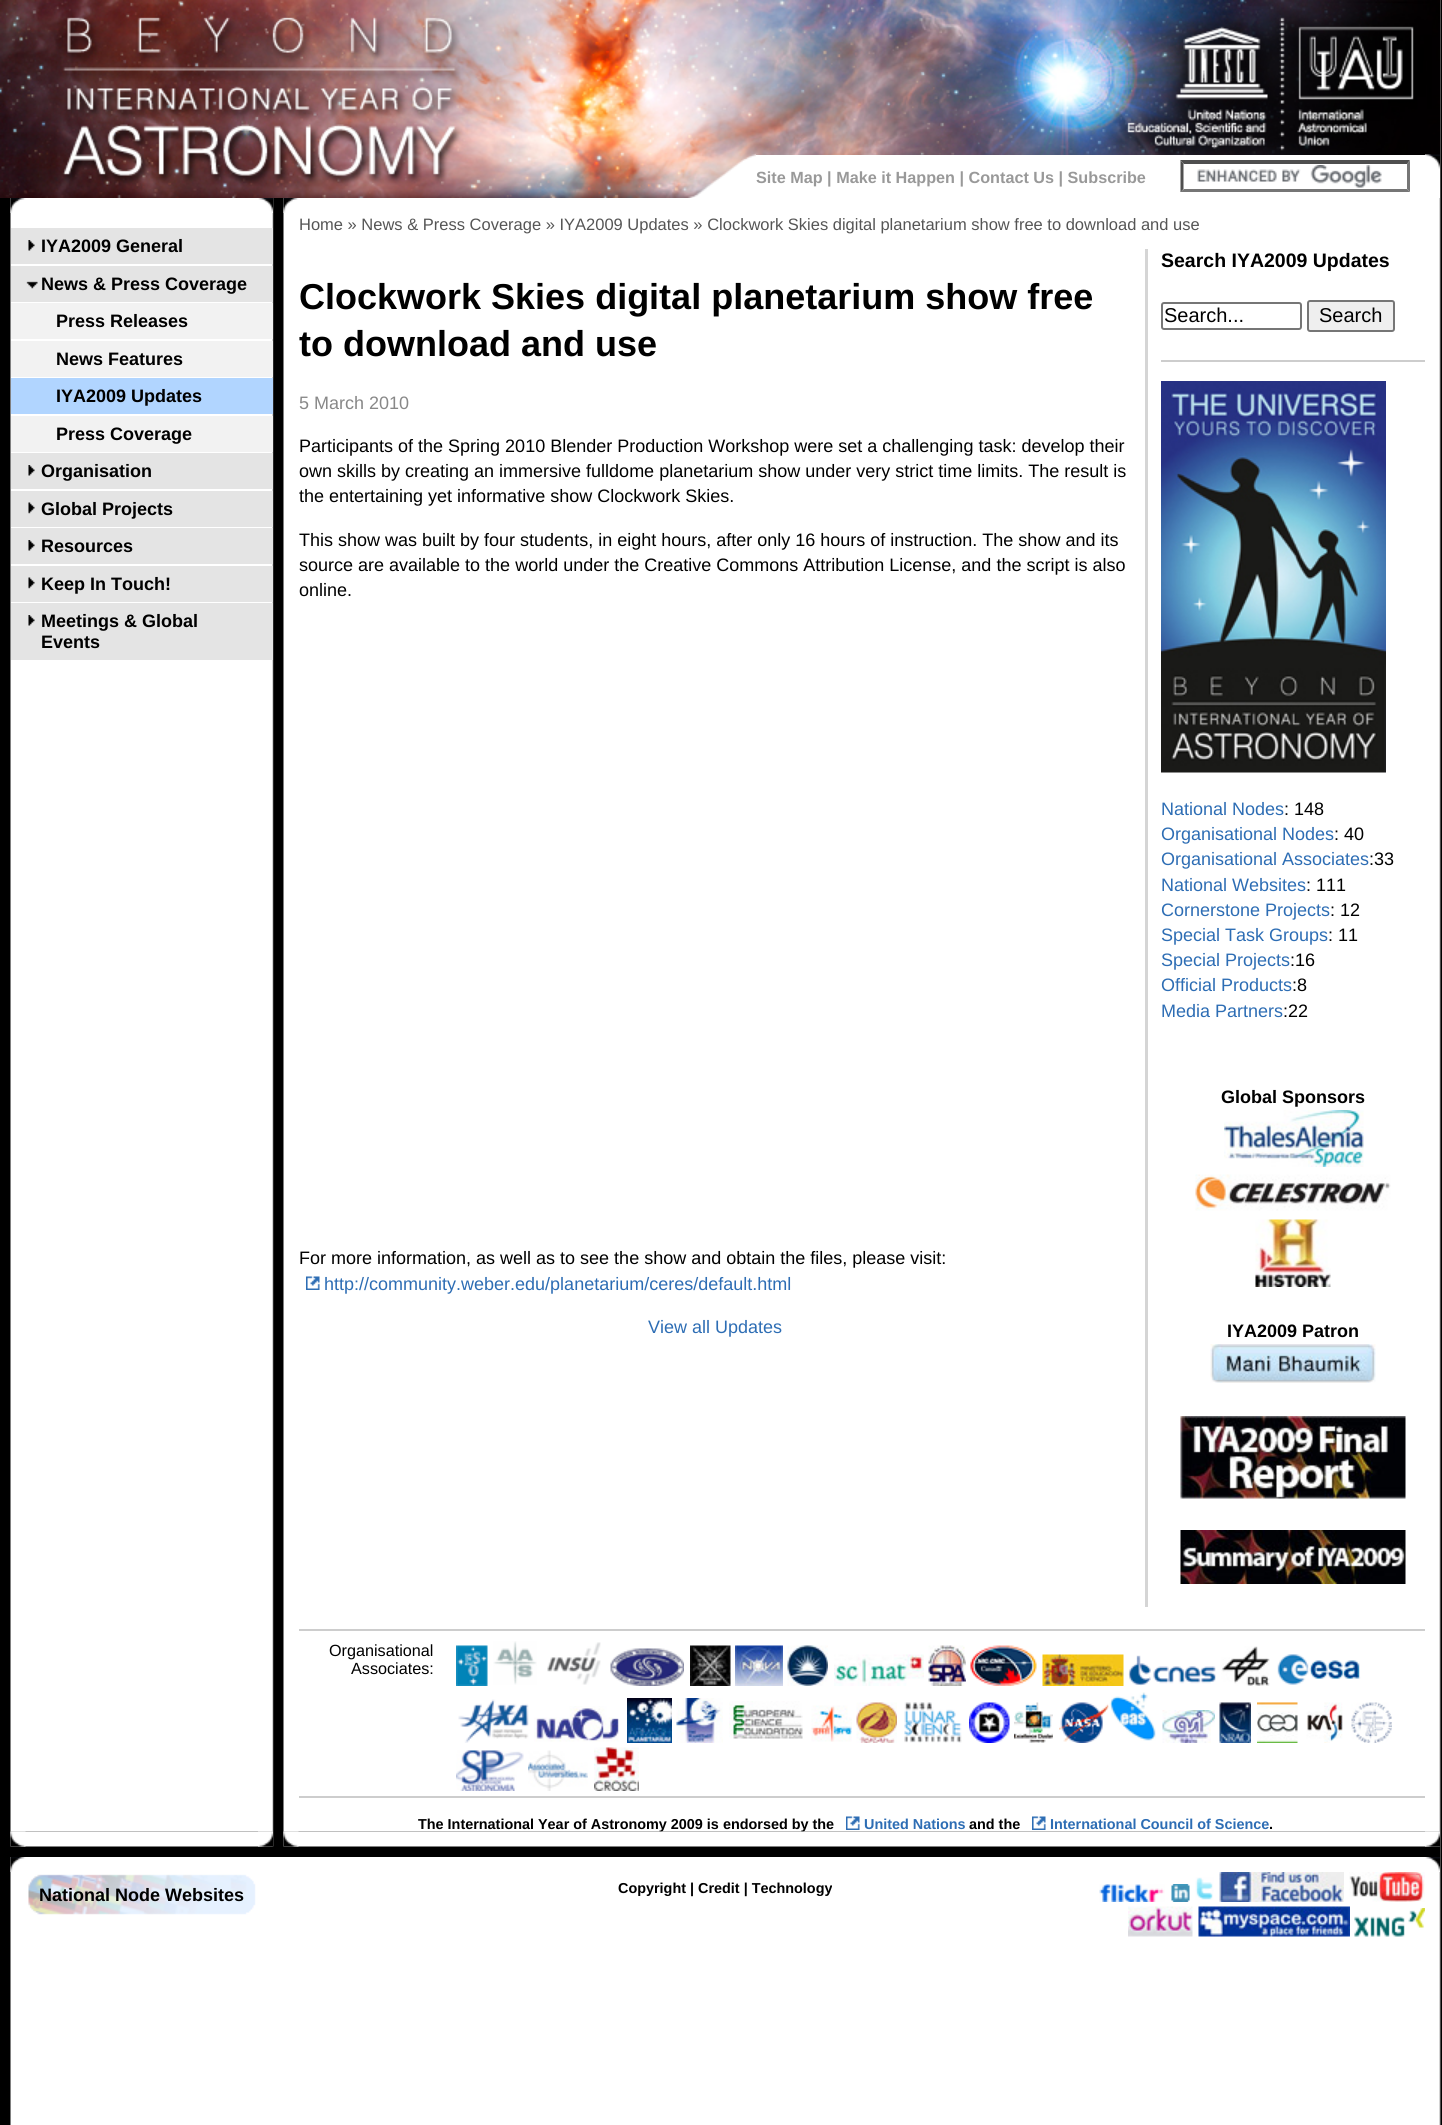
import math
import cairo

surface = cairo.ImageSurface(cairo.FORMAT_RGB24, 1442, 2125)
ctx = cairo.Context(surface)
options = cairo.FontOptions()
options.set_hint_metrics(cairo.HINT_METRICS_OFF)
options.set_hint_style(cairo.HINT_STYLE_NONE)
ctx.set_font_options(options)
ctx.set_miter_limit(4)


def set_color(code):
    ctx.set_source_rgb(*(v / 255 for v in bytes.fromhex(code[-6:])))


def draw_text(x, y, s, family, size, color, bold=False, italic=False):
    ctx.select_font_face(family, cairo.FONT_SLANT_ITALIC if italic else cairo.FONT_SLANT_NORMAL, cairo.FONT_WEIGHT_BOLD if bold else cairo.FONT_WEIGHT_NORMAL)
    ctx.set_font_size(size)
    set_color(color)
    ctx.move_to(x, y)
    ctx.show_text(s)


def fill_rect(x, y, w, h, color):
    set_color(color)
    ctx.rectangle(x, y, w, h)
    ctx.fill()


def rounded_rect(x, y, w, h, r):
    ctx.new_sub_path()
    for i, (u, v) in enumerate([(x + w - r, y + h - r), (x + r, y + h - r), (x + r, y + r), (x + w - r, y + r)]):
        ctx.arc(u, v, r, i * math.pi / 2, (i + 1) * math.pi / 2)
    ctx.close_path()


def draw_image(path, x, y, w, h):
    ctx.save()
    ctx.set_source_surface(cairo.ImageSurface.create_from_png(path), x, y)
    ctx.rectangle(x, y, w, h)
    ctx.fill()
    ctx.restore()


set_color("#000000")
ctx.paint()
draw_image("assets/img1.png", 1440, 0, 1, 2125)
draw_image("assets/img2.png", 10, 0, 1431, 2125)
fill_rect(10, 198, 1430, 1659, "#000000")
draw_image("assets/img3.png", 10, 198, 1430, 1634)
draw_image("assets/img4.png", 0, 0, 1440, 198)
draw_image("assets/img5.png", 688, 154, 68, 44)
fill_rect(756, 155, 684, 43, "#ffffff")
draw_image("assets/img6.png", 1425, 154, 15, 15)
draw_text(756, 183, "Site Map | Make it Happen | Contact Us | Subscribe", "Liberation Sans", 16.2, "#999999", bold=True)
draw_image("assets/img7.png", 1197, 165, 185, 23)
set_color("#4f4f4f")
ctx.new_path()
ctx.move_to(1180, 160)
ctx.line_to(1410, 160)
ctx.line_to(1407, 164)
ctx.line_to(1184, 164)
ctx.close_path()
ctx.fill()
set_color("#767676")
ctx.new_path()
ctx.move_to(1410, 160.5)
ctx.line_to(1410, 192)
ctx.line_to(1407, 189)
ctx.line_to(1407, 163.5)
ctx.close_path()
ctx.fill()
ctx.new_path()
ctx.move_to(1410, 192)
ctx.line_to(1180, 192)
ctx.line_to(1184, 189)
ctx.line_to(1407, 189)
ctx.close_path()
ctx.fill()
set_color("#4f4f4f")
ctx.new_path()
ctx.move_to(1180.5, 192)
ctx.line_to(1180.5, 160.5)
ctx.line_to(1183.5, 163.5)
ctx.line_to(1183.5, 189)
ctx.close_path()
ctx.fill()
draw_image("assets/img8.png", 10, 198, 16, 15)
draw_image("assets/img9.png", 258, 198, 15, 15)
fill_rect(11, 228, 262, 36, "#e4e4e4")
draw_image("assets/img10.png", 28, 240, 7, 11)
draw_text(41, 252, "IYA2009 General", "Liberation Sans", 18, "#000000", bold=True)
fill_rect(11, 266, 262, 36, "#e4e4e4")
draw_image("assets/img11.png", 26, 281, 12, 8)
draw_text(41, 290, "News & Press Coverage", "Liberation Sans", 18, "#000000", bold=True)
fill_rect(11, 303, 262, 36, "#f2f2f2")
draw_text(56, 327, "Press Releases", "Liberation Sans", 18, "#000000", bold=True)
fill_rect(11, 341, 262, 36, "#f2f2f2")
draw_text(56, 365, "News Features", "Liberation Sans", 18, "#000000", bold=True)
fill_rect(11, 378, 262, 36, "#b1d5ff")
draw_text(56, 402, "IYA2009 Updates", "Liberation Sans", 18, "#000000", bold=True)
fill_rect(11, 416, 262, 36, "#f2f2f2")
draw_text(56, 440, "Press Coverage", "Liberation Sans", 18, "#000000", bold=True)
fill_rect(11, 453, 262, 36, "#e4e4e4")
draw_image("assets/img10.png", 28, 465, 7, 11)
draw_text(41, 477, "Organisation", "Liberation Sans", 18, "#000000", bold=True)
fill_rect(11, 491, 262, 36, "#e4e4e4")
draw_image("assets/img12.png", 28, 502, 7, 12)
draw_text(41, 515, "Global Projects", "Liberation Sans", 18, "#000000", bold=True)
fill_rect(11, 528, 262, 36, "#e4e4e4")
draw_image("assets/img10.png", 28, 540, 7, 11)
draw_text(41, 552, "Resources", "Liberation Sans", 18, "#000000", bold=True)
fill_rect(11, 566, 262, 36, "#e4e4e4")
draw_image("assets/img12.png", 28, 577, 7, 12)
draw_text(41, 590, "Keep In Touch!", "Liberation Sans", 18, "#000000", bold=True)
fill_rect(11, 603, 262, 57, "#e4e4e4")
draw_image("assets/img10.png", 28, 615, 7, 11)
draw_text(41, 627, "Meetings & Global", "Liberation Sans", 18, "#000000", bold=True)
draw_text(41, 648, "Events", "Liberation Sans", 18, "#000000", bold=True)
draw_image("assets/img13.png", 283, 198, 16, 15)
draw_text(299, 230, "Home » News & Press Coverage » IYA2009 Updates » Clockwork Skies digital planetarium show free to download and use", "Liberation Sans", 16.5, "#555555")
fill_rect(1145, 249, 3, 1358, "#d5d5d5")
draw_text(299, 309, "Clockwork Skies digital planetarium show free", "Liberation Sans", 36, "#000000", bold=True)
draw_text(299, 356, "to download and use", "Liberation Sans", 36, "#000000", bold=True)
draw_text(299, 409, "5 March 2010", "Liberation Sans", 18, "#888888")
draw_text(299, 452, "Participants of the Spring 2010 Blender Production Workshop were set a challenging task: develop their", "Liberation Sans", 18, "#000000")
draw_text(299, 477, "own skills by creating an immersive fulldome planetarium show under very strict time limits. The result is", "Liberation Sans", 18, "#000000")
draw_text(299, 502, "the entertaining yet informative show Clockwork Skies.", "Liberation Sans", 18, "#000000")
draw_text(299, 546, "This show was built by four students, in eight hours, after only 16 hours of instruction. The show and its", "Liberation Sans", 18, "#000000")
draw_text(299, 571, "source are available to the world under the Creative Commons Attribution License, and the script is also", "Liberation Sans", 18, "#000000")
draw_text(299, 596, "online.", "Liberation Sans", 18, "#000000")
draw_text(299, 1264, "For more information, as well as to see the show and obtain the files, please visit:", "Liberation Sans", 18, "#000000")
draw_image("assets/img14.png", 306, 1276, 14, 14)
draw_text(324, 1290, "http://community.weber.edu/planetarium/ceres/default.html", "Liberation Sans", 18, "#2d6db4")
draw_text(648, 1333, "View all Updates", "Liberation Sans", 18, "#2d6db4")
draw_text(1161, 267, "Search IYA2009 Updates", "Liberation Sans", 19.5, "#000000", bold=True)
rounded_rect(1162, 303, 139, 26, 2)
set_color("#767676")
ctx.stroke()
draw_text(1164, 322, "Search...", "Liberation Sans", 20, "#000000")
set_color("#efefef")
rounded_rect(1308, 301, 86, 30, 2)
ctx.fill_preserve()
set_color("#767676")
ctx.stroke()
draw_text(1319, 322, "Search", "Liberation Sans", 20, "#000000")
fill_rect(1161, 360, 264, 2, "#cdcdcd")
draw_image("assets/img15.png", 1161, 381, 225, 392)
draw_text(1161, 815, "National Nodes", "Liberation Sans", 18, "#2d6db4")
draw_text(1284, 815, ": 148", "Liberation Sans", 18, "#000000")
draw_text(1161, 840, "Organisational Nodes", "Liberation Sans", 18, "#2d6db4")
draw_text(1334, 840, ": 40", "Liberation Sans", 18, "#000000")
draw_text(1161, 865, "Organisational Associates", "Liberation Sans", 18, "#2d6db4")
draw_text(1369, 865, ":33", "Liberation Sans", 18, "#000000")
draw_text(1161, 891, "National Websites", "Liberation Sans", 18, "#2d6db4")
draw_text(1306, 891, ": 111", "Liberation Sans", 18, "#000000")
draw_text(1161, 916, "Cornerstone Projects", "Liberation Sans", 18, "#2d6db4")
draw_text(1330, 916, ": 12", "Liberation Sans", 18, "#000000")
draw_text(1161, 941, "Special Task Groups", "Liberation Sans", 18, "#2d6db4")
draw_text(1328, 941, ": 11", "Liberation Sans", 18, "#000000")
draw_text(1161, 966, "Special Projects", "Liberation Sans", 18, "#2d6db4")
draw_text(1290, 966, ":16", "Liberation Sans", 18, "#000000")
draw_text(1161, 991, "Official Products", "Liberation Sans", 18, "#2d6db4")
draw_text(1292, 991, ":8", "Liberation Sans", 18, "#000000")
draw_text(1161, 1017, "Media Partners", "Liberation Sans", 18, "#2d6db4")
draw_text(1283, 1017, ":22", "Liberation Sans", 18, "#000000")
draw_text(1221, 1103, "Global Sponsors", "Liberation Sans", 18, "#000000", bold=True)
draw_image("assets/img16.png", 1224, 1110, 140, 57)
draw_image("assets/img17.png", 1195, 1174, 196, 37)
draw_image("assets/img18.png", 1255, 1219, 76, 68)
draw_text(1227, 1337, "IYA2009 Patron", "Liberation Sans", 18, "#000000", bold=True)
draw_image("assets/img19.png", 1210, 1344, 166, 39)
draw_image("assets/img20.png", 1180, 1416, 226, 83)
draw_image("assets/img21.png", 1180, 1530, 226, 54)
fill_rect(299, 1629, 1126, 2, "#cdcdcd")
draw_text(329, 1656, "Organisational", "Liberation Sans", 16.2, "#000000")
draw_text(351, 1674, "Associates:", "Liberation Sans", 16.2, "#000000")
draw_image("assets/img22.png", 456, 1645, 32, 41)
draw_image("assets/img23.png", 493, 1641, 44, 44)
draw_image("assets/img24.png", 547, 1642, 54, 43)
draw_image("assets/img25.png", 610, 1648, 74, 38)
draw_image("assets/img26.png", 690, 1645, 41, 41)
draw_image("assets/img27.png", 735, 1645, 48, 41)
draw_image("assets/img28.png", 787, 1645, 41, 41)
draw_image("assets/img29.png", 834, 1654, 90, 32)
draw_image("assets/img30.png", 928, 1645, 38, 41)
draw_image("assets/img31.png", 970, 1645, 67, 41)
draw_image("assets/img32.png", 1042, 1654, 82, 32)
draw_image("assets/img33.png", 1128, 1655, 88, 31)
draw_image("assets/img34.png", 1221, 1646, 49, 40)
draw_image("assets/img35.png", 1277, 1654, 84, 31)
draw_image("assets/img36.png", 458, 1699, 71, 44)
draw_image("assets/img37.png", 534, 1706, 85, 36)
draw_image("assets/img38.png", 627, 1698, 45, 45)
draw_image("assets/img39.png", 676, 1698, 47, 45)
draw_image("assets/img40.png", 729, 1701, 74, 38)
draw_image("assets/img41.png", 811, 1705, 41, 37)
draw_image("assets/img42.png", 856, 1702, 41, 41)
draw_image("assets/img43.png", 904, 1702, 58, 41)
draw_image("assets/img44.png", 969, 1702, 41, 41)
draw_image("assets/img45.png", 1014, 1702, 39, 41)
draw_image("assets/img46.png", 1059, 1702, 50, 41)
draw_image("assets/img47.png", 1108, 1692, 48, 49)
draw_image("assets/img48.png", 1162, 1710, 53, 33)
draw_image("assets/img49.png", 1219, 1702, 32, 41)
draw_image("assets/img50.png", 1257, 1702, 41, 41)
draw_image("assets/img51.png", 1306, 1702, 37, 41)
draw_image("assets/img52.png", 1351, 1702, 41, 41)
draw_image("assets/img53.png", 456, 1750, 68, 41)
draw_image("assets/img54.png", 528, 1750, 60, 41)
draw_image("assets/img55.png", 594, 1747, 45, 44)
fill_rect(299, 1796, 1126, 2, "#cdcdcd")
draw_text(418, 1829, "The International Year of Astronomy 2009 is endorsed by the", "Liberation Sans", 14.4, "#000000", bold=True)
draw_image("assets/img56.png", 846, 1816, 14, 14)
draw_text(864, 1829, "United Nations", "Liberation Sans", 14.4, "#2d6db4", bold=True)
draw_text(969, 1829, "and the", "Liberation Sans", 14.4, "#000000", bold=True)
draw_image("assets/img14.png", 1032, 1816, 14, 14)
draw_text(1050, 1829, "International Council of Science", "Liberation Sans", 14.4, "#2d6db4", bold=True)
draw_text(1269, 1829, ".", "Liberation Sans", 14.4, "#000000", bold=True)
draw_image("assets/img57.png", 10, 1831, 1430, 16)
draw_image("assets/img58.png", 10, 1831, 16, 16)
draw_image("assets/img59.png", 258, 1831, 15, 16)
draw_image("assets/img60.png", 283, 1831, 16, 16)
draw_image("assets/img61.png", 1425, 1831, 15, 16)
draw_image("assets/img8.png", 10, 1857, 16, 15)
draw_image("assets/img62.png", 1425, 1857, 15, 15)
draw_image("assets/img63.png", 28, 1874, 228, 41)
draw_text(39, 1901, "National Node Websites", "Liberation Sans", 18, "#000000", bold=True)
draw_text(618, 1893, "Copyright | Credit | Technology", "Liberation Sans", 14.4, "#000000", bold=True)
draw_image("assets/img64.png", 1099, 1884, 66, 18)
draw_image("assets/img65.png", 1171, 1884, 19, 18)
draw_image("assets/img66.png", 1195, 1877, 19, 23)
draw_image("assets/img67.png", 1219, 1872, 125, 30)
draw_image("assets/img68.png", 1349, 1872, 76, 30)
draw_image("assets/img69.png", 1128, 1906, 65, 31)
draw_image("assets/img70.png", 1198, 1906, 152, 31)
draw_image("assets/img71.png", 1354, 1908, 71, 29)
surface.write_to_png("output.png")
